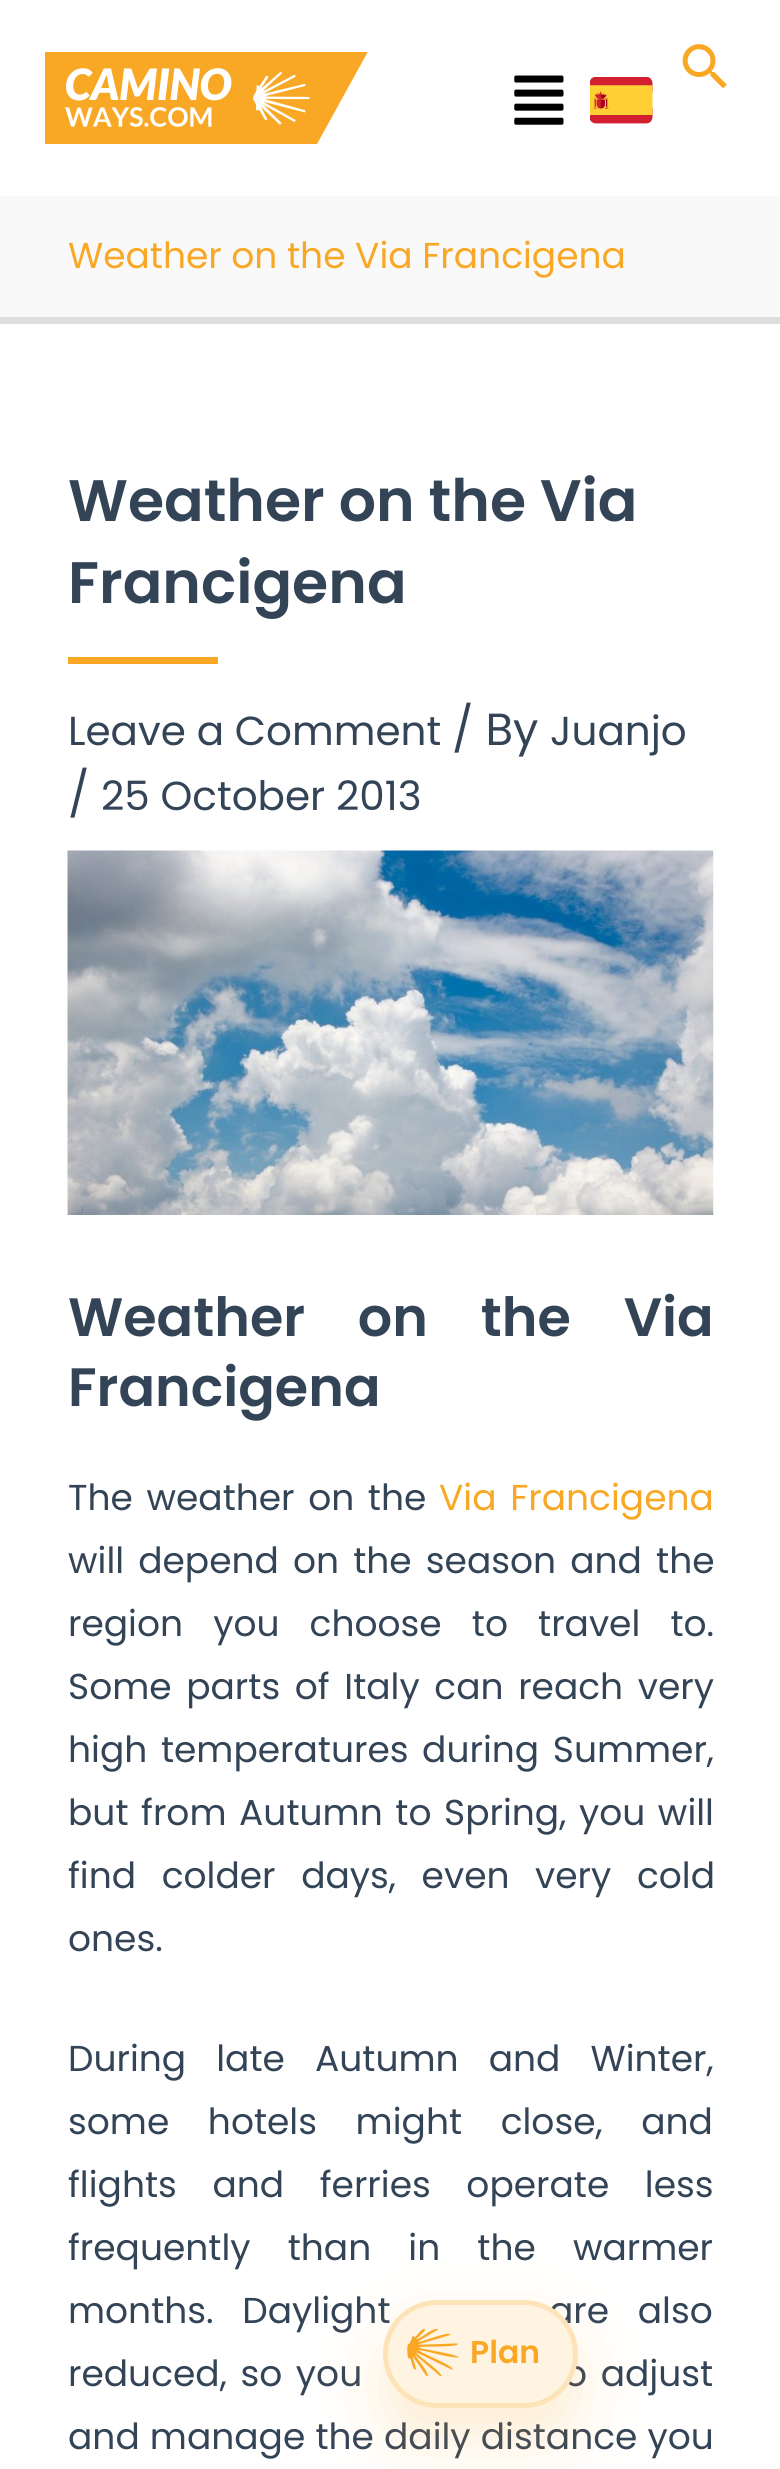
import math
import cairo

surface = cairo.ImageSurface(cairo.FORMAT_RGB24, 780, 2469)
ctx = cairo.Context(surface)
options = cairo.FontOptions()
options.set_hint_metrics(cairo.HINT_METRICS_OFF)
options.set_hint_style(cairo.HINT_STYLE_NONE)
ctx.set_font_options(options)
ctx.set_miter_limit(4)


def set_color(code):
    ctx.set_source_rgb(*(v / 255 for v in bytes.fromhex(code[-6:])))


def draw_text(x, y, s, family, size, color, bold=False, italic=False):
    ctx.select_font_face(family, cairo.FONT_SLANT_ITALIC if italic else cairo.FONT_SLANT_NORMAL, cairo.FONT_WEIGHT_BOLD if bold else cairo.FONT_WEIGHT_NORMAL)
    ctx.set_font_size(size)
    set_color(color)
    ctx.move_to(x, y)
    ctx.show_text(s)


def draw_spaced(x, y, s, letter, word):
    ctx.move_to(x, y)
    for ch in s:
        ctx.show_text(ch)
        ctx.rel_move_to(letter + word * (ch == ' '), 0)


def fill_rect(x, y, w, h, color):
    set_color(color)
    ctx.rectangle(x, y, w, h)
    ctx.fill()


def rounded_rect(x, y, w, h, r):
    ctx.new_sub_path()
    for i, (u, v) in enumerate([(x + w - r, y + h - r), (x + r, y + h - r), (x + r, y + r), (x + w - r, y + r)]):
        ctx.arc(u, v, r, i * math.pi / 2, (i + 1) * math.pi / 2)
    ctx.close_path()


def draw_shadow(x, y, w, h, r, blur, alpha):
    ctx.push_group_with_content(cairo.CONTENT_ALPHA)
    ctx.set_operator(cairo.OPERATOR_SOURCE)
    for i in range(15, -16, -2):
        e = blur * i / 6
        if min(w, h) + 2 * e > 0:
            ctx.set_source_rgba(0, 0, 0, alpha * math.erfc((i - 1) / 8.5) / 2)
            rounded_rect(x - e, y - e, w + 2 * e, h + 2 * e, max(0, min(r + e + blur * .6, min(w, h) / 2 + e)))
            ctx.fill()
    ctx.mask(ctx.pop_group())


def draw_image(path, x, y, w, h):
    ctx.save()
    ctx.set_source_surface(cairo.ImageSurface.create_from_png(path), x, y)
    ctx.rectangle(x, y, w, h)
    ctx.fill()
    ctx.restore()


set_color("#ffffff")
ctx.paint()
draw_image("assets/img1.png", 45, 52, 323, 92)
draw_image("assets/img2.png", 682, 44, 45, 45)
draw_image("assets/img3.png", 514, 75, 50, 50)
draw_image("assets/img4.png", 590, 77, 63, 47)
fill_rect(0, 196, 780, 121, "#f9f9f9")
fill_rect(0, 317, 780, 7, "#dddddd")
draw_text(68, 268, "Weather on the Via Francigena", "Poppins", 36, "#f9a825")
draw_text(68, 521, "Weather on the Via", "Poppins SemiBold", 58.5, "#344457")
draw_text(68, 603, "Francigena", "Poppins SemiBold", 58.5, "#344457")
fill_rect(68, 657, 150, 7, "#f9a825")
draw_text(68, 745, "Leave a Comment", "Poppins", 40.5, "#344457")
draw_text(452, 745, "/ By", "Poppins", 45, "#344457")
draw_text(550, 745, "Juanjo", "Poppins", 40.5, "#344457")
draw_text(68, 810, "/", "Poppins", 45, "#344457")
draw_text(101, 810, "25 October 2013", "Poppins", 40.5, "#344457")
draw_image("assets/img5.png", 67, 850, 647, 365)
ctx.select_font_face("Poppins SemiBold")
ctx.set_font_size(54)
draw_spaced(68, 1336, "Weather on the Via", 0, 40)
draw_text(68, 1406, "Francigena", "Poppins SemiBold", 54, "#344457")
ctx.select_font_face("Poppins")
ctx.set_font_size(36)
draw_spaced(68, 1510, "The weather on the", 0, 4)
set_color("#f9a825")
draw_spaced(439, 1510, "Via Francigena", 0, 4)
set_color("#344457")
draw_spaced(68, 1573, "will depend on the season and the", 0, 4.5)
draw_spaced(68, 1636, "region you choose to travel to.", 0, 20.5)
draw_spaced(68, 1699, "Some parts of Italy can reach very", 0, 5)
draw_spaced(68, 1762, "high temperatures during Summer,", 0, 4)
draw_spaced(68, 1825, "but from Autumn to Spring, you will", 0, 3)
draw_spaced(68, 1888, "find colder days, even very cold", 0, 16)
draw_text(68, 1951, "ones.", "Poppins", 36, "#344457")
draw_spaced(68, 2071, "During late Autumn and Winter,", 0, 20.5)
draw_spaced(68, 2134, "some hotels might close, and", 0, 29)
draw_spaced(68, 2197, "flights and ferries operate less", 0, 26)
draw_spaced(68, 2260, "frequently than in the warmer", 0, 27.5)
draw_spaced(68, 2323, "months. Daylight", 0, 19)
draw_spaced(549, 2323, "are also", 0, 19)
draw_spaced(68, 2386, "reduced, so you", 0, 4)
draw_spaced(564, 2386, "o adjust", 0, 4)
draw_spaced(68, 2449, "and manage the daily distance you", 0, 0.5)
set_color("#f9a825")
draw_shadow(383, 2333, 195, 108, 54, 34, 0.2)
set_color("#fff4e2")
rounded_rect(383, 2300, 195, 108, 54)
ctx.fill()
rounded_rect(385.5, 2302.5, 190, 103, 51.5)
ctx.set_source_rgba(0.976, 0.635, 0.078, 0.2)
ctx.set_line_width(5)
ctx.stroke()
draw_image("assets/img6.png", 407, 2329, 52, 47)
draw_text(470, 2363, "Plan", "Poppins SemiBold", 31.5, "#f9a825")
surface.write_to_png("output.png")
